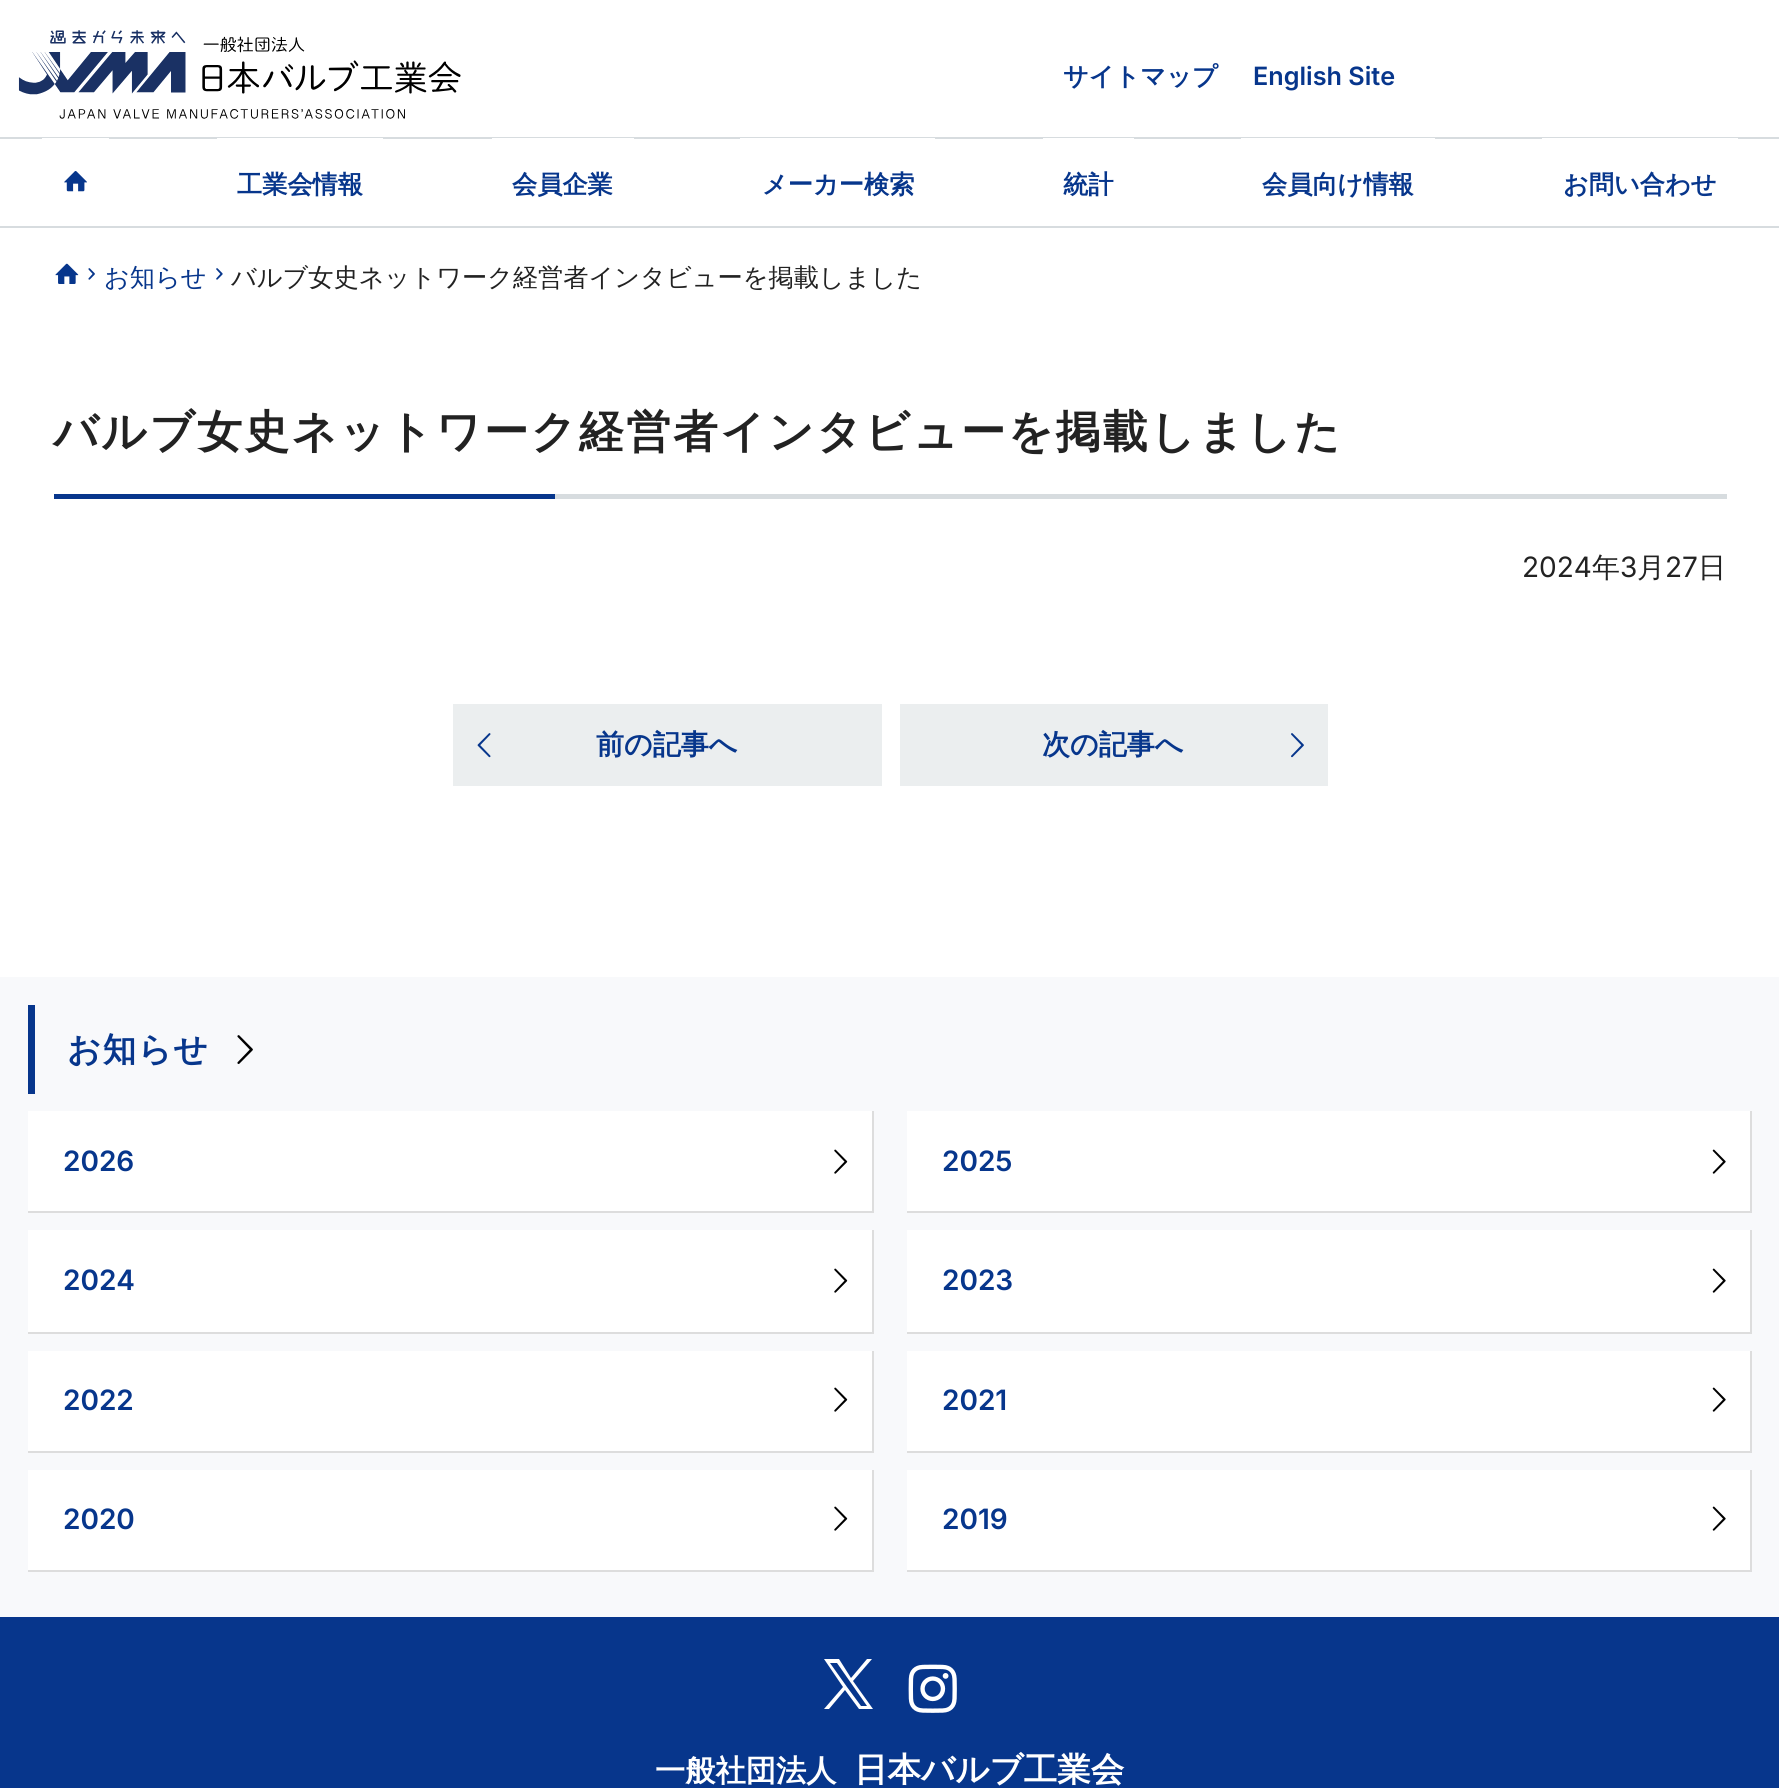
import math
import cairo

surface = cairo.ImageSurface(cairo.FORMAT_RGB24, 1779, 1788)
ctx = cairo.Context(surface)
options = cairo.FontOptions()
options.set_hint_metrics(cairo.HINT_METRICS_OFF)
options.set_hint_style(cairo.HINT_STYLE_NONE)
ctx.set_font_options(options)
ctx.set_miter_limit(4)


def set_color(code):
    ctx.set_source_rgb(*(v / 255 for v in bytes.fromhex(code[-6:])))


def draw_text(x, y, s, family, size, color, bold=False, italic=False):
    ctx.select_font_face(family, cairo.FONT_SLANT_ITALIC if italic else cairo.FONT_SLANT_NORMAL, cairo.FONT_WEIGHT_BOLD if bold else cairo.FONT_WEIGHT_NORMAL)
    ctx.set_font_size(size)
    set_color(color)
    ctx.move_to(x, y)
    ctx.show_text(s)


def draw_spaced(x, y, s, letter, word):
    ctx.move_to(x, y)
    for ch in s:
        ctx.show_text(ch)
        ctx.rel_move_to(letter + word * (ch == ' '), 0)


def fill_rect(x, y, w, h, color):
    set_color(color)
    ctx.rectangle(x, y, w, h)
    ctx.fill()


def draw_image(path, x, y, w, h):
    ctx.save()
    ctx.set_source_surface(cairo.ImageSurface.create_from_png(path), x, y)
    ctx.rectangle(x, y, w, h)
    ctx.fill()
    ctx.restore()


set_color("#ffffff")
ctx.paint()
draw_image("assets/img1.png", 18, 30, 443, 89)
draw_text(1063, 85, "サイトマップ", "WenQuanYi Zen Hei", 25.2, "#07368c", bold=True)
draw_text(1253, 85, "English Site", "Inter SemiBold", 25.2, "#07368c")
fill_rect(0, 137, 1779, 2, "#d7dcdf")
fill_rect(0, 226, 1779, 2, "#d7dcdf")
fill_rect(42, 138, 67, 1, "#ffffff")
draw_image("assets/img2.png", 64, 171, 23, 21)
fill_rect(217, 138, 166, 1, "#ffffff")
draw_text(237, 193, "工業会情報", "WenQuanYi Zen Hei", 25.2, "#07368c", bold=True)
fill_rect(492, 138, 142, 1, "#ffffff")
draw_text(512, 193, "会員企業", "WenQuanYi Zen Hei", 25.2, "#07368c", bold=True)
fill_rect(740, 138, 195, 1, "#ffffff")
draw_text(762, 193, "メーカー検索", "WenQuanYi Zen Hei", 25.2, "#07368c", bold=True)
fill_rect(1043, 138, 91, 1, "#ffffff")
draw_text(1063, 193, "統計", "WenQuanYi Zen Hei", 25.2, "#07368c", bold=True)
fill_rect(1241, 138, 194, 1, "#ffffff")
draw_text(1262, 193, "会員向け情報", "WenQuanYi Zen Hei", 25.2, "#07368c", bold=True)
fill_rect(1542, 138, 196, 1, "#ffffff")
draw_text(1563, 193, "お問い合わせ", "WenQuanYi Zen Hei", 25.2, "#07368c", bold=True)
draw_image("assets/img3.png", 55, 263, 24, 21)
draw_image("assets/img4.png", 88, 268, 7, 12)
draw_text(104, 286, "お知らせ", "WenQuanYi Zen Hei Medium", 25.2, "#07368c")
draw_image("assets/img5.png", 216, 268, 7, 12)
draw_text(231, 286, "バルブ女史ネットワーク経営者インタビューを掲載しました", "WenQuanYi Zen Hei Medium", 25.2, "#222222")
fill_rect(555, 494, 1172, 5, "#d7dcdf")
ctx.select_font_face("WenQuanYi Zen Hei", cairo.FONT_SLANT_NORMAL, cairo.FONT_WEIGHT_BOLD)
ctx.set_font_size(44.8)
set_color("#222222")
draw_spaced(53, 447, "バルブ女史ネットワーク経営者インタビューを掲載しました", 2.25, 0)
fill_rect(54, 494, 501, 5, "#07368c")
draw_text(1522, 577, "2024", "Inter", 28, "#222222")
draw_text(1592, 577, "年", "WenQuanYi Zen Hei Medium", 28, "#222222")
draw_text(1620, 577, "3", "Inter", 28, "#222222")
draw_text(1637, 577, "月", "WenQuanYi Zen Hei Medium", 28, "#222222")
draw_text(1665, 577, "27", "Inter", 28, "#222222")
draw_text(1698, 577, "日", "WenQuanYi Zen Hei Medium", 28, "#222222")
fill_rect(453, 704, 429, 82, "#ebeeef")
draw_image("assets/img6.png", 477, 733, 14, 25)
draw_text(596, 754, "前の記事へ", "WenQuanYi Zen Hei", 28, "#07368c", bold=True)
fill_rect(900, 704, 428, 82, "#ebeeef")
draw_text(1042, 754, "次の記事へ", "WenQuanYi Zen Hei", 28, "#07368c", bold=True)
draw_image("assets/img7.png", 1291, 733, 13, 25)
fill_rect(0, 977, 1779, 640, "#f8f9fb")
fill_rect(28, 1005, 7, 89, "#07368c")
ctx.set_font_size(33.5)
draw_spaced(67, 1061, "お知らせ", 1.5, 0)
draw_image("assets/img8.png", 237, 1035, 16, 29)
fill_rect(28, 1111, 844, 100, "#ffffff")
fill_rect(872, 1111, 2, 102, "#dddddd")
fill_rect(28, 1211, 845, 2, "#dddddd")
draw_text(63, 1171, "2026", "Inter SemiBold", 28, "#07368c")
draw_image("assets/img9.png", 834, 1149, 14, 25)
fill_rect(907, 1111, 843, 100, "#ffffff")
fill_rect(1750, 1111, 2, 102, "#dddddd")
fill_rect(907, 1211, 845, 2, "#dddddd")
draw_text(942, 1171, "2025", "Inter SemiBold", 28, "#07368c")
draw_image("assets/img10.png", 1712, 1149, 14, 25)
fill_rect(28, 1230, 844, 102, "#ffffff")
fill_rect(872, 1230, 2, 104, "#dddddd")
fill_rect(28, 1332, 845, 2, "#dddddd")
draw_text(63, 1290, "2024", "Inter SemiBold", 28, "#07368c")
draw_image("assets/img9.png", 834, 1268, 14, 25)
fill_rect(907, 1230, 843, 102, "#ffffff")
fill_rect(1750, 1230, 2, 104, "#dddddd")
fill_rect(907, 1332, 845, 2, "#dddddd")
draw_text(942, 1290, "2023", "Inter SemiBold", 28, "#07368c")
draw_image("assets/img10.png", 1712, 1268, 14, 25)
fill_rect(28, 1351, 844, 100, "#ffffff")
fill_rect(872, 1351, 2, 102, "#dddddd")
fill_rect(28, 1451, 845, 2, "#dddddd")
draw_text(63, 1410, "2022", "Inter SemiBold", 28, "#07368c")
draw_image("assets/img9.png", 834, 1387, 14, 25)
fill_rect(907, 1351, 843, 100, "#ffffff")
fill_rect(1750, 1351, 2, 102, "#dddddd")
fill_rect(907, 1451, 845, 2, "#dddddd")
draw_text(942, 1410, "2021", "Inter SemiBold", 28, "#07368c")
draw_image("assets/img10.png", 1712, 1387, 14, 25)
fill_rect(28, 1470, 844, 100, "#ffffff")
fill_rect(872, 1470, 2, 102, "#dddddd")
fill_rect(28, 1570, 845, 2, "#dddddd")
draw_text(63, 1529, "2020", "Inter SemiBold", 28, "#07368c")
draw_image("assets/img9.png", 834, 1506, 14, 25)
fill_rect(907, 1470, 843, 100, "#ffffff")
fill_rect(1750, 1470, 2, 102, "#dddddd")
fill_rect(907, 1570, 845, 2, "#dddddd")
draw_text(942, 1529, "2019", "Inter SemiBold", 28, "#07368c")
draw_image("assets/img10.png", 1712, 1506, 14, 25)
fill_rect(0, 1617, 1779, 171, "#07368c")
set_color("#ffffff")
ctx.new_path()
ctx.move_to(853, 1681)
ctx.line_to(872, 1659)
ctx.line_to(867, 1659)
ctx.line_to(851, 1678)
ctx.line_to(839, 1659)
ctx.line_to(824, 1659)
ctx.line_to(843, 1687)
ctx.line_to(824, 1709)
ctx.line_to(829, 1709)
ctx.line_to(845, 1690)
ctx.line_to(859, 1709)
ctx.line_to(873, 1709)
ctx.close_path()
ctx.move_to(847, 1687)
ctx.line_to(830, 1663)
ctx.line_to(837, 1663)
ctx.line_to(867, 1706)
ctx.line_to(861, 1706)
ctx.close_path()
ctx.fill()
draw_image("assets/img11.png", 908, 1664, 49, 49)
draw_text(655, 1781, "一般社団法人", "WenQuanYi Zen Hei", 30.25, "#ffffff", bold=True)
draw_text(854, 1781, "日本バルブ工業会", "WenQuanYi Zen Hei", 33.5, "#ffffff", bold=True)
surface.write_to_png("output.png")
